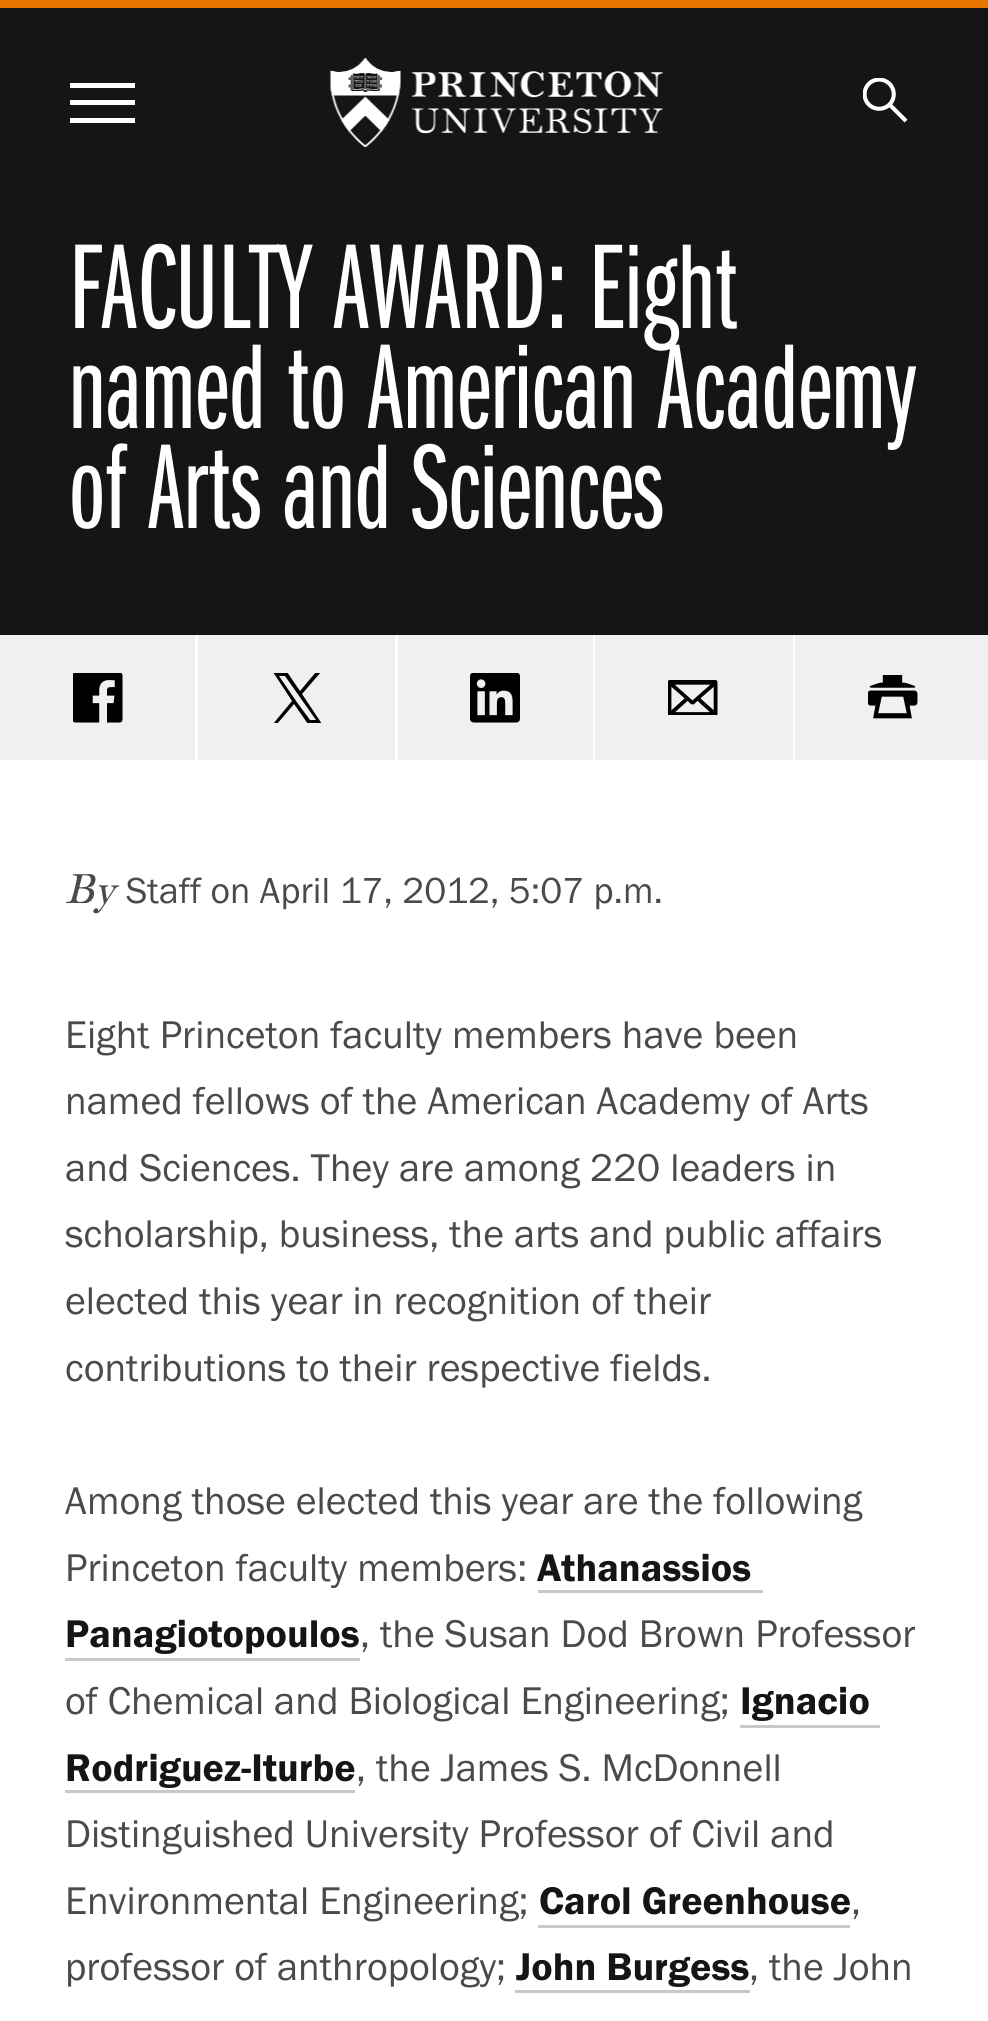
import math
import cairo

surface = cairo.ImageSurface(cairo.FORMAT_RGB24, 988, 2021)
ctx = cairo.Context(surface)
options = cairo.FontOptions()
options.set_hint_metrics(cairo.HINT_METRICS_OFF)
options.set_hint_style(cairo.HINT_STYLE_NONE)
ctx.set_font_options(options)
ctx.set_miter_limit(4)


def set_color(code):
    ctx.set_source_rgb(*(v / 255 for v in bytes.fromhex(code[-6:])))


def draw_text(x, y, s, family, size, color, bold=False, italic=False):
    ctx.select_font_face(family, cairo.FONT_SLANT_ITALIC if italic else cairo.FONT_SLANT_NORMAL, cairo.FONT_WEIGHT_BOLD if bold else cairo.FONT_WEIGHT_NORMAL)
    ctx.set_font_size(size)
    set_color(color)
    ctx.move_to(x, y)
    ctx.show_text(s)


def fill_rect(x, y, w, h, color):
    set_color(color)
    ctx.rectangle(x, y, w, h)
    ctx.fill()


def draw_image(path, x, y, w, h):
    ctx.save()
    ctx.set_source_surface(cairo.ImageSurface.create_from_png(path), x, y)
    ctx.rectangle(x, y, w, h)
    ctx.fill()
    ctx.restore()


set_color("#ffffff")
ctx.paint()
fill_rect(0, 0, 988, 8, "#e77500")
fill_rect(0, 8, 988, 627, "#151515")
fill_rect(70, 83, 65, 5, "#ffffff")
fill_rect(70, 100, 65, 5, "#ffffff")
fill_rect(70, 118, 65, 5, "#ffffff")
draw_image("assets/img1.png", 330, 58, 333, 90)
draw_image("assets/img2.png", 863, 78, 45, 45)
draw_text(69, 328, "FACULTY AWARD: Eight", "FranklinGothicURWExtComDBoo", 125, "#ffffff")
draw_text(69, 428, "named to American Academy", "FranklinGothicURWExtComDBoo", 125, "#ffffff")
draw_text(69, 528, "of Arts and Sciences", "FranklinGothicURWExtComDBoo", 125, "#ffffff")
fill_rect(0, 635, 195, 125, "#f0f0f0")
draw_image("assets/img3.png", 73, 673, 50, 50)
fill_rect(198, 635, 197, 125, "#f0f0f0")
ctx.save()
ctx.rectangle(273, 673, 50, 50)
ctx.clip()
set_color("#000000")
ctx.new_path()
ctx.move_to(302, 694)
ctx.line_to(321, 672)
ctx.line_to(316, 672)
ctx.line_to(300, 691)
ctx.line_to(287, 672)
ctx.line_to(273, 672)
ctx.line_to(292, 701)
ctx.line_to(273, 724)
ctx.line_to(277, 724)
ctx.line_to(294, 704)
ctx.line_to(308, 724)
ctx.line_to(322, 724)
ctx.close_path()
ctx.move_to(296, 701)
ctx.line_to(279, 676)
ctx.line_to(285, 676)
ctx.line_to(316, 720)
ctx.line_to(310, 720)
ctx.close_path()
ctx.fill()
ctx.restore()
fill_rect(398, 635, 195, 125, "#f0f0f0")
draw_image("assets/img4.png", 470, 673, 50, 50)
fill_rect(595, 635, 198, 125, "#f0f0f0")
draw_image("assets/img5.png", 668, 680, 50, 35)
fill_rect(795, 635, 193, 125, "#f0f0f0")
draw_image("assets/img6.png", 868, 675, 50, 44)
draw_text(65, 903, "By", "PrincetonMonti", 40, "#4a4a4a", italic=True)
draw_text(126, 903, "Staff on April 17, 2012, 5:07 p.m.", "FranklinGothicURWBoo", 37.5, "#4a4a4a")
draw_text(65, 1048, "Eight Princeton faculty members have been", "FranklinGothicURWBoo", 40, "#4a4a4a")
draw_text(65, 1114, "named fellows of the American Academy of Arts", "FranklinGothicURWBoo", 40, "#4a4a4a")
draw_text(65, 1181, "and Sciences. They are among 220 leaders in", "FranklinGothicURWBoo", 40, "#4a4a4a")
draw_text(65, 1247, "scholarship, business, the arts and public affairs", "FranklinGothicURWBoo", 40, "#4a4a4a")
draw_text(65, 1314, "elected this year in recognition of their", "FranklinGothicURWBoo", 40, "#4a4a4a")
draw_text(65, 1381, "contributions to their respective fields.", "FranklinGothicURWBoo", 40, "#4a4a4a")
draw_text(65, 1514, "Among those elected this year are the following", "FranklinGothicURWBoo", 40, "#4a4a4a")
draw_text(65, 1581, "Princeton faculty members:", "FranklinGothicURWBoo", 40, "#4a4a4a")
draw_text(537, 1581, "Athanassios", "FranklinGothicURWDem", 40, "#151515")
fill_rect(538, 1590, 225, 3, "#c8c8c8")
draw_text(65, 1647, "Panagiotopoulos", "FranklinGothicURWDem", 40, "#151515")
fill_rect(65, 1658, 295, 3, "#c8c8c8")
draw_text(360, 1647, ", the Susan Dod Brown Professor", "FranklinGothicURWBoo", 40, "#4a4a4a")
draw_text(65, 1714, "of Chemical and Biological Engineering;", "FranklinGothicURWBoo", 40, "#4a4a4a")
draw_text(740, 1714, "Ignacio", "FranklinGothicURWDem", 40, "#151515")
fill_rect(740, 1725, 140, 3, "#c8c8c8")
draw_text(65, 1781, "Rodriguez-Iturbe", "FranklinGothicURWDem", 40, "#151515")
fill_rect(65, 1790, 290, 3, "#c8c8c8")
draw_text(356, 1781, ", the James S. McDonnell", "FranklinGothicURWBoo", 40, "#4a4a4a")
draw_text(65, 1847, "Distinguished University Professor of Civil and", "FranklinGothicURWBoo", 40, "#4a4a4a")
draw_text(65, 1914, "Environmental Engineering;", "FranklinGothicURWBoo", 40, "#4a4a4a")
draw_text(539, 1914, "Carol Greenhouse", "FranklinGothicURWDem", 40, "#151515")
fill_rect(538, 1925, 312, 3, "#c8c8c8")
draw_text(851, 1914, ",", "FranklinGothicURWBoo", 40, "#4a4a4a")
draw_text(65, 1980, "professor of anthropology;", "FranklinGothicURWBoo", 40, "#4a4a4a")
draw_text(516, 1980, "John Burgess", "FranklinGothicURWDem", 40, "#151515")
fill_rect(515, 1990, 235, 3, "#c8c8c8")
draw_text(749, 1980, ", the John", "FranklinGothicURWBoo", 40, "#4a4a4a")
surface.write_to_png("output.png")
